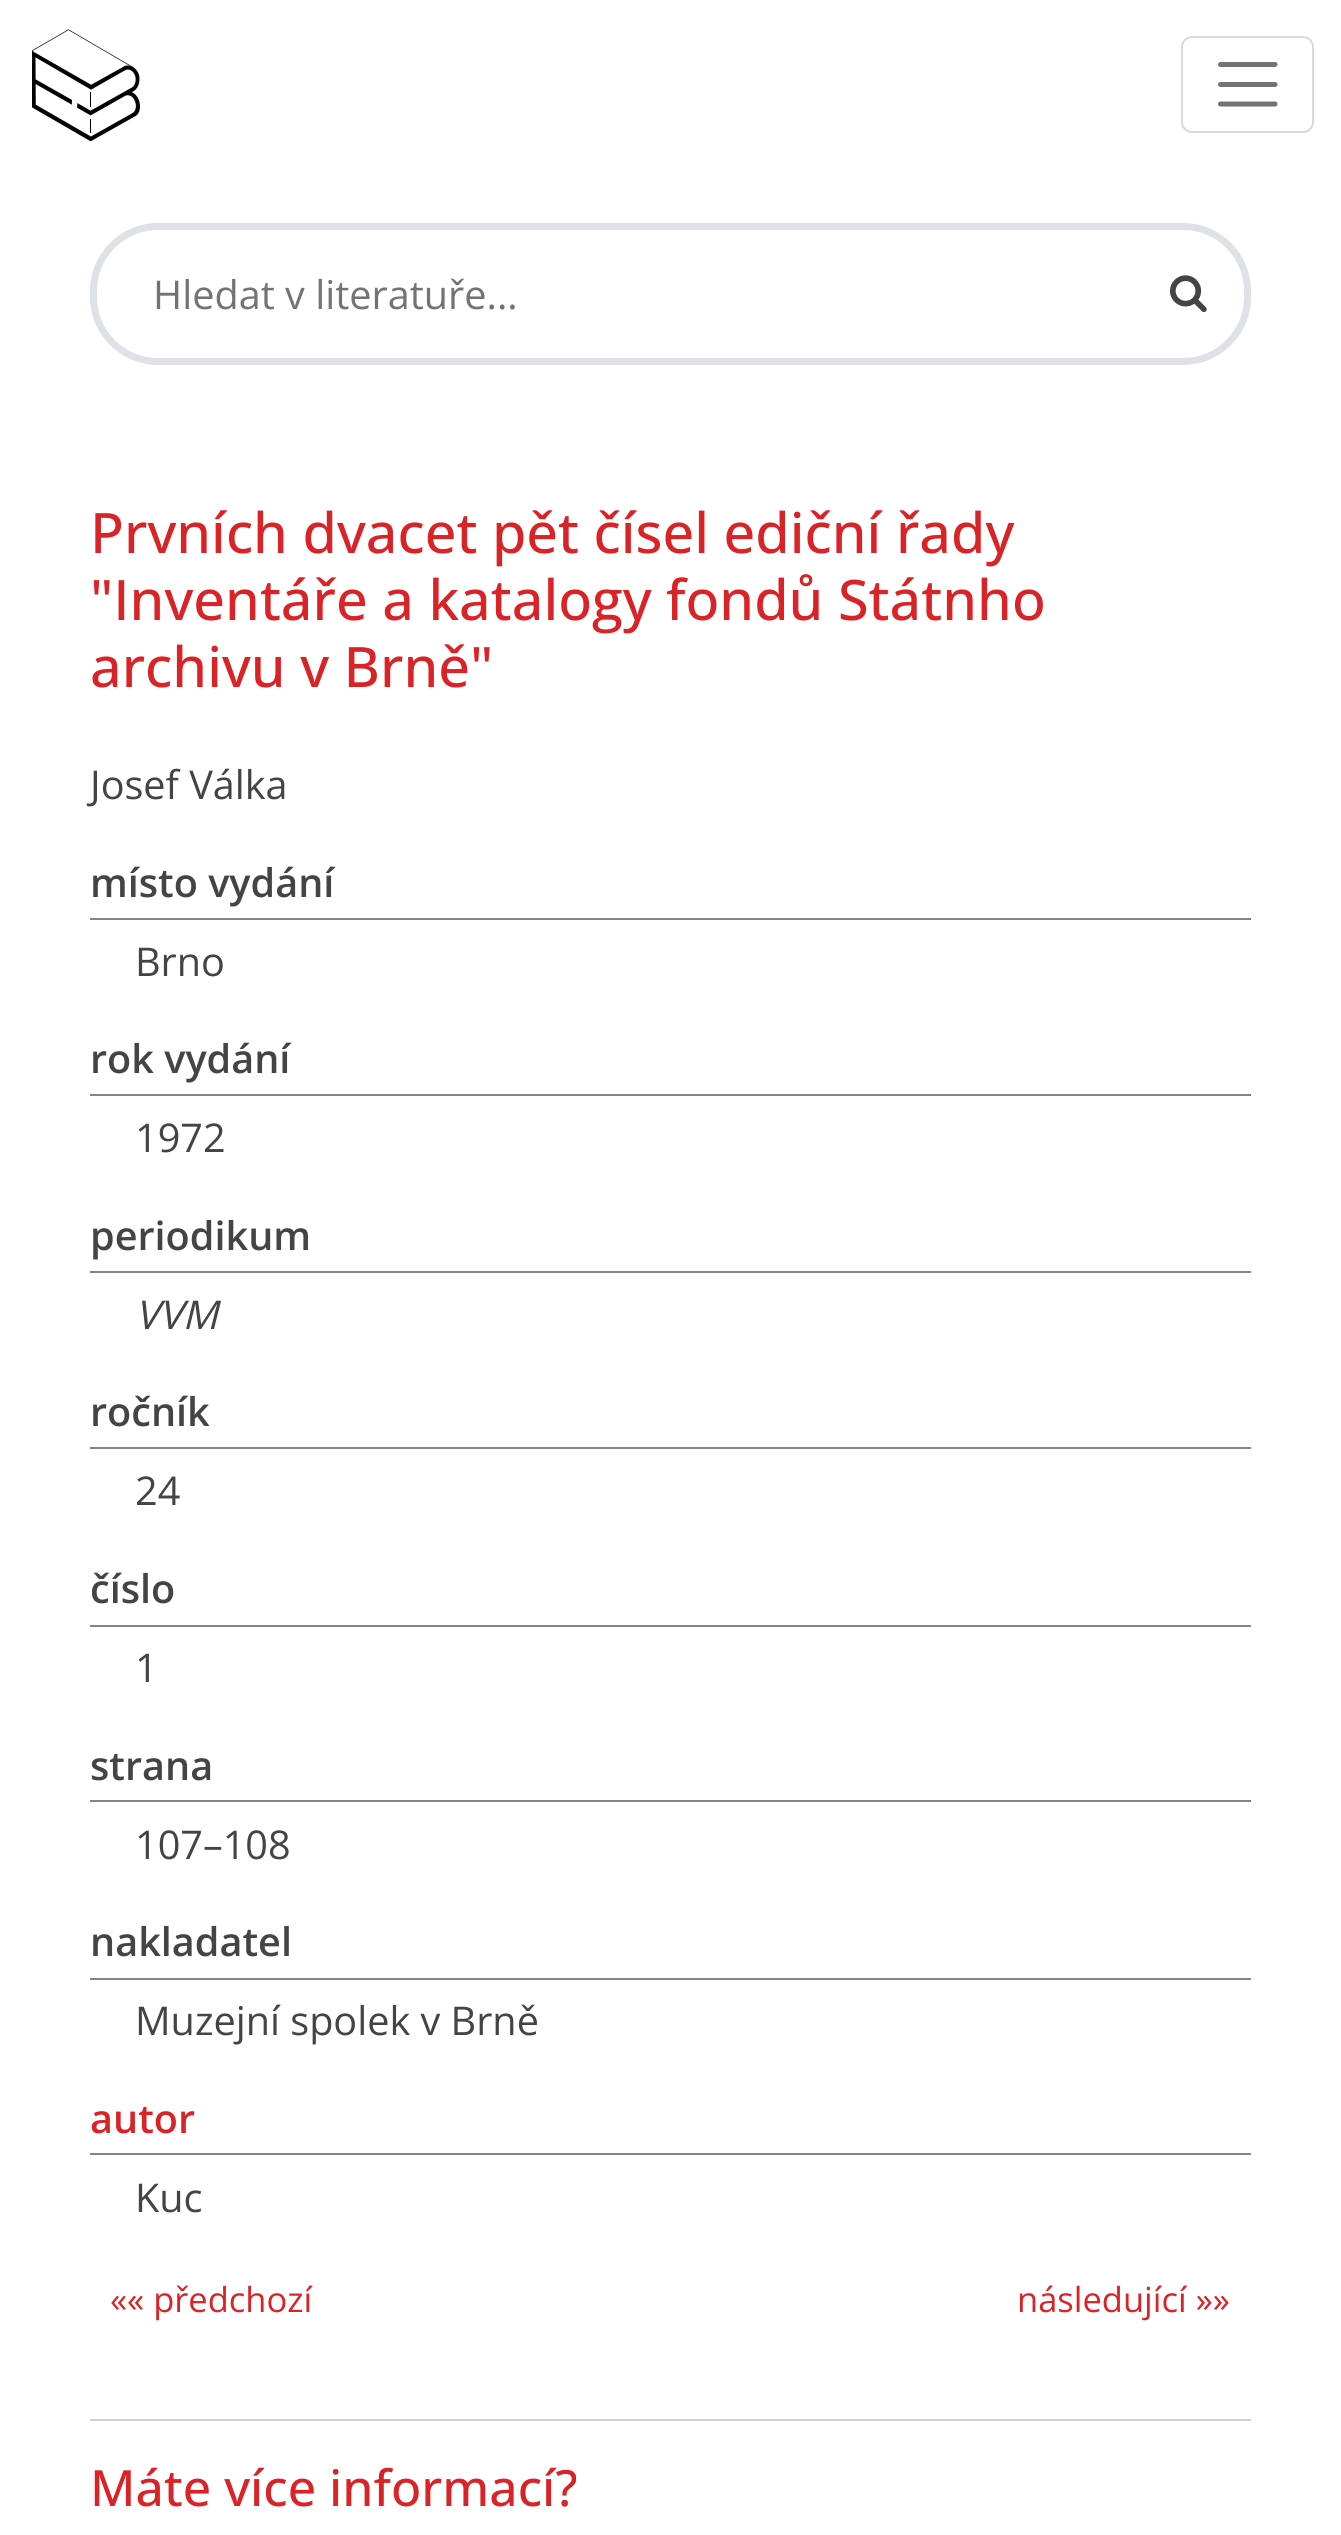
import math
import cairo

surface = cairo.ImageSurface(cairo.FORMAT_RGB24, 1341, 2535)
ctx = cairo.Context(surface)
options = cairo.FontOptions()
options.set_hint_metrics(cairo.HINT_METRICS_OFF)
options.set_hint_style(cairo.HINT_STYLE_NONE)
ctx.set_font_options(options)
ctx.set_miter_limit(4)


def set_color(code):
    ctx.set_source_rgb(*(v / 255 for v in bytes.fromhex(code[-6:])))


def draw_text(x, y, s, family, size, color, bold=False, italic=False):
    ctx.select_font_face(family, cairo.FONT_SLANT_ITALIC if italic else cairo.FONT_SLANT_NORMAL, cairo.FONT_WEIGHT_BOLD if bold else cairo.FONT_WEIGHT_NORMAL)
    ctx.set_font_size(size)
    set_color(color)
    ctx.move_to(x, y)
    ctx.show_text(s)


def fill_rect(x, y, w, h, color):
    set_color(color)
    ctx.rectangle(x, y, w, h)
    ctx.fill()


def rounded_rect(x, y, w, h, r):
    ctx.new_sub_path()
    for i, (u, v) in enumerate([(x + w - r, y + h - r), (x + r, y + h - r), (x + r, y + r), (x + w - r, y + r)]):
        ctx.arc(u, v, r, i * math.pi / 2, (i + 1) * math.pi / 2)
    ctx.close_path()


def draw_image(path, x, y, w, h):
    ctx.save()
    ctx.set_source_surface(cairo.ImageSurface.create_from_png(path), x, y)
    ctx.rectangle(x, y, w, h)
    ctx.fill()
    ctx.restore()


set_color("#ffffff")
ctx.paint()
draw_image("assets/img1.png", 32, 29, 108, 113)
rounded_rect(1182, 37, 131, 95, 10)
set_color("#d9d9d9")
ctx.stroke()
ctx.new_path()
ctx.move_to(1220.5, 64.5)
ctx.line_to(1275, 64.5)
ctx.move_to(1220.5, 84.5)
ctx.line_to(1275, 84.5)
ctx.move_to(1220.5, 104)
ctx.line_to(1275, 104)
set_color("#737373")
ctx.set_line_width(5)
ctx.set_line_cap(cairo.LINE_CAP_ROUND)
ctx.stroke()
rounded_rect(93.5, 226.5, 1154, 135, 64.5)
set_color("#dee2e6")
ctx.set_line_width(7)
ctx.set_line_cap(cairo.LINE_CAP_BUTT)
ctx.stroke()
draw_text(153, 309, "Hledat v literatuře...", "Open Sans", 39.6, "#737373")
draw_image("assets/img2.png", 1170, 275, 37, 38)
draw_text(90, 553, "Prvních dvacet pět čísel ediční řady", "Open Sans Medium", 55.8, "#da2327")
draw_text(90, 620, "\"Inventáře a katalogy fondů Státnho", "Open Sans Medium", 55.8, "#da2327")
draw_text(90, 687, "archivu v Brně\"", "Open Sans Medium", 55.8, "#da2327")
draw_text(90, 799, "Josef Válka", "Open Sans", 39.6, "#444444")
fill_rect(90, 918, 1161, 2, "#848484")
draw_text(90, 897, "místo vydání", "Open Sans SemiBold", 39.6, "#444444")
draw_text(135, 976, "Brno", "Open Sans", 39.6, "#444444")
fill_rect(90, 1094, 1161, 2, "#848484")
draw_text(90, 1073, "rok vydání", "Open Sans SemiBold", 39.6, "#444444")
draw_text(135, 1152, "1972", "Open Sans", 39.6, "#444444")
fill_rect(90, 1271, 1161, 2, "#848484")
draw_text(90, 1250, "periodikum", "Open Sans SemiBold", 39.6, "#444444")
draw_text(135, 1329, "VVM", "Open Sans", 39.6, "#444444", italic=True)
fill_rect(90, 1447, 1161, 2, "#848484")
draw_text(90, 1426, "ročník", "Open Sans SemiBold", 39.6, "#444444")
draw_text(135, 1505, "24", "Open Sans", 39.6, "#444444")
fill_rect(90, 1625, 1161, 2, "#848484")
draw_text(90, 1603, "číslo", "Open Sans SemiBold", 39.6, "#444444")
draw_text(135, 1682, "1", "Open Sans", 39.6, "#444444")
fill_rect(90, 1800, 1161, 2, "#848484")
draw_text(90, 1780, "strana", "Open Sans SemiBold", 39.6, "#444444")
draw_text(135, 1859, "107–108", "Open Sans", 39.6, "#444444")
fill_rect(90, 1978, 1161, 2, "#848484")
draw_text(90, 1956, "nakladatel", "Open Sans SemiBold", 39.6, "#444444")
draw_text(135, 2035, "Muzejní spolek v Brně", "Open Sans", 39.6, "#444444")
fill_rect(90, 2153, 1161, 2, "#848484")
draw_text(90, 2133, "autor", "Open Sans SemiBold", 39.6, "#da2327")
draw_text(135, 2212, "Kuc", "Open Sans", 39.6, "#444444")
draw_text(110, 2312, "«« předchozí", "Open Sans", 34.5, "#da2327")
draw_text(1017, 2312, "následující »»", "Open Sans", 34.5, "#da2327")
fill_rect(90, 2419, 1161, 2, "#d0d0d0")
draw_text(90, 2506, "Máte více informací?", "Open Sans Medium", 50, "#da2327")
surface.write_to_png("output.png")
